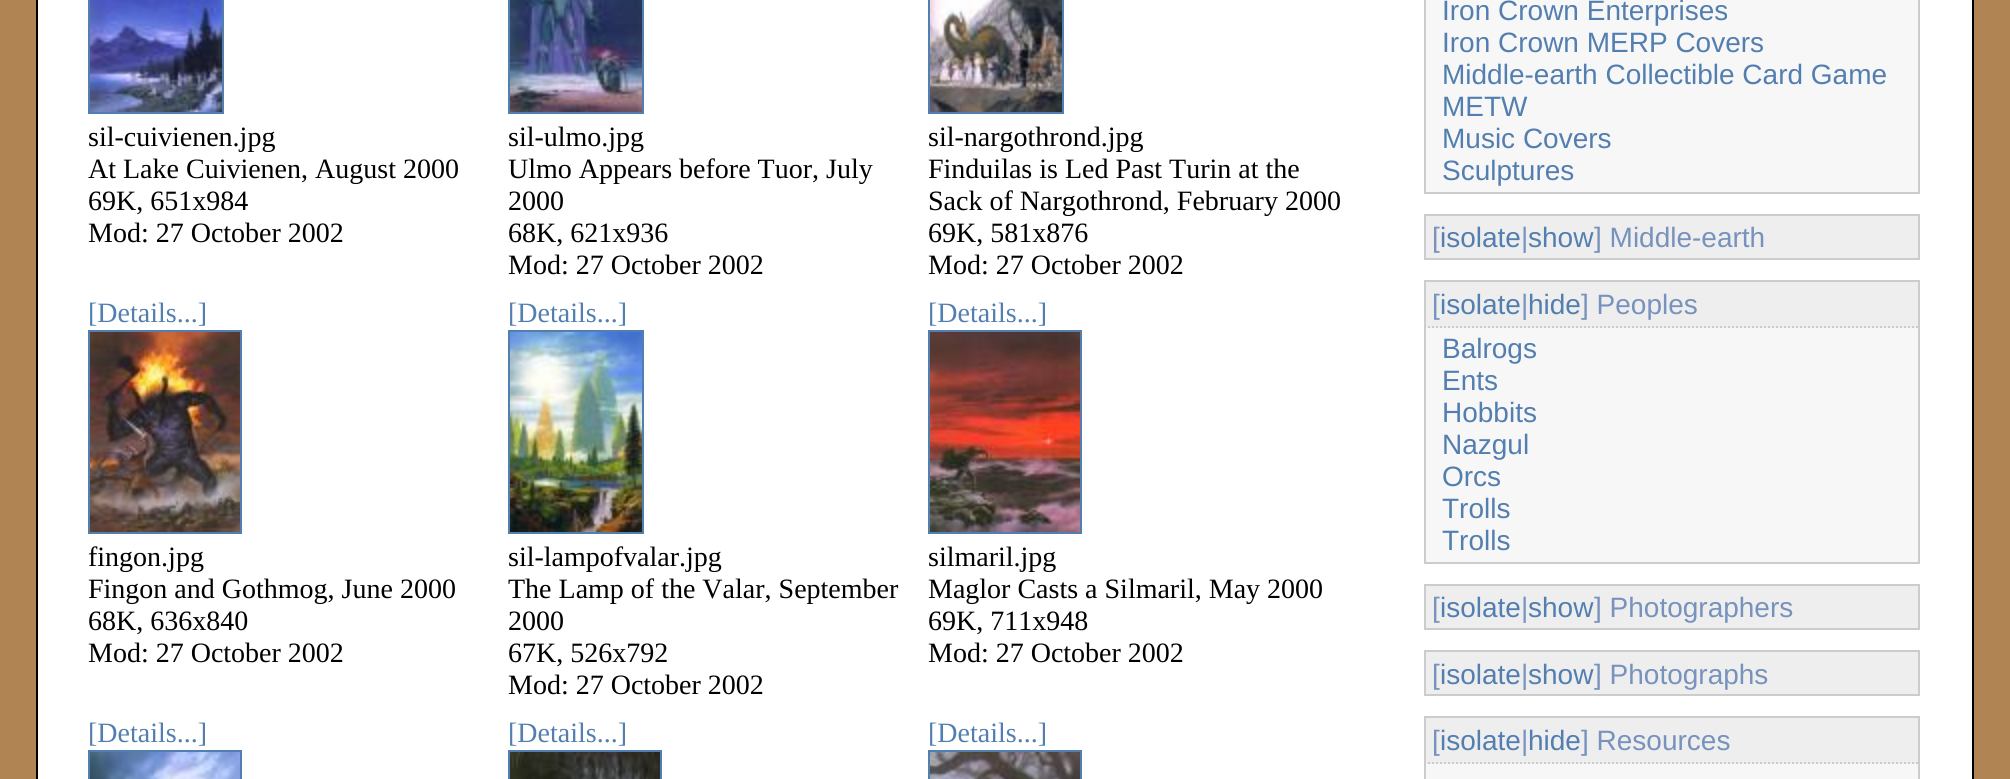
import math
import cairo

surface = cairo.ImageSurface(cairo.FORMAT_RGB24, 2010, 779)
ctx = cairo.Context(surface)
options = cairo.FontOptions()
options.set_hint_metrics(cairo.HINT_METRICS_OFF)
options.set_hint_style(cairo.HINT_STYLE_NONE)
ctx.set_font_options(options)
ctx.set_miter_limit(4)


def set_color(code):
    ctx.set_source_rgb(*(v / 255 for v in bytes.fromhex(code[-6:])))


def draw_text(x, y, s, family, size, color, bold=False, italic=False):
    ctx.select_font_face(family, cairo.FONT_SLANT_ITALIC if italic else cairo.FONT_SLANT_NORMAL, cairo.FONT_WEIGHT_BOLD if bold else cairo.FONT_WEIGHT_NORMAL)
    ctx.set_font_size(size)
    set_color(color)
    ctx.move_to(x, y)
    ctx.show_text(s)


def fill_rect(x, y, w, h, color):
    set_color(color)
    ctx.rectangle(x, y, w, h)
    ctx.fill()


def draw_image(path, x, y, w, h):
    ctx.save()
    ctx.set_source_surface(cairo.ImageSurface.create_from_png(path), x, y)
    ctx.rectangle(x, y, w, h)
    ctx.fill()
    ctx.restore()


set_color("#b08553")
ctx.paint()
set_color("#ffffff")
ctx.rectangle(37, -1, 1936, 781)
ctx.fill_preserve()
set_color("#000000")
ctx.stroke()
ctx.rectangle(89, -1, 134, 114)
set_color("#537eb0")
ctx.stroke()
draw_image("assets/img1.png", 90, 0, 132, 112)
draw_text(88, 146, "sil-cuivienen.jpg", "Liberation Serif", 28, "#000000")
draw_text(88, 178, "At Lake Cuivienen, August 2000", "Liberation Serif", 28, "#000000")
draw_text(88, 210, "69K, 651x984", "Liberation Serif", 28, "#000000")
draw_text(88, 242, "Mod: 27 October 2002", "Liberation Serif", 28, "#000000")
ctx.rectangle(509, -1, 134, 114)
set_color("#537eb0")
ctx.stroke()
draw_image("assets/img2.png", 510, 0, 132, 112)
draw_text(508, 146, "sil-ulmo.jpg", "Liberation Serif", 28, "#000000")
draw_text(508, 178, "Ulmo Appears before Tuor, July", "Liberation Serif", 28, "#000000")
draw_text(508, 210, "2000", "Liberation Serif", 28, "#000000")
draw_text(508, 242, "68K, 621x936", "Liberation Serif", 28, "#000000")
draw_text(508, 274, "Mod: 27 October 2002", "Liberation Serif", 28, "#000000")
ctx.rectangle(929, -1, 134, 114)
set_color("#537eb0")
ctx.stroke()
draw_image("assets/img3.png", 930, 0, 132, 112)
draw_text(928, 146, "sil-nargothrond.jpg", "Liberation Serif", 28, "#000000")
draw_text(928, 178, "Finduilas is Led Past Turin at the", "Liberation Serif", 28, "#000000")
draw_text(928, 210, "Sack of Nargothrond, February 2000", "Liberation Serif", 28, "#000000")
draw_text(928, 242, "69K, 581x876", "Liberation Serif", 28, "#000000")
draw_text(928, 274, "Mod: 27 October 2002", "Liberation Serif", 28, "#000000")
draw_text(88, 322, "[Details...]", "Liberation Serif", 28, "#537eb0")
ctx.rectangle(89, 331, 152, 202)
ctx.stroke()
draw_image("assets/img4.png", 90, 332, 150, 200)
draw_text(88, 566, "fingon.jpg", "Liberation Serif", 28, "#000000")
draw_text(88, 598, "Fingon and Gothmog, June 2000", "Liberation Serif", 28, "#000000")
draw_text(88, 630, "68K, 636x840", "Liberation Serif", 28, "#000000")
draw_text(88, 662, "Mod: 27 October 2002", "Liberation Serif", 28, "#000000")
draw_text(508, 322, "[Details...]", "Liberation Serif", 28, "#537eb0")
ctx.rectangle(509, 331, 134, 202)
ctx.stroke()
draw_image("assets/img5.png", 510, 332, 132, 200)
draw_text(508, 566, "sil-lampofvalar.jpg", "Liberation Serif", 28, "#000000")
draw_text(508, 598, "The Lamp of the Valar, September", "Liberation Serif", 28, "#000000")
draw_text(508, 630, "2000", "Liberation Serif", 28, "#000000")
draw_text(508, 662, "67K, 526x792", "Liberation Serif", 28, "#000000")
draw_text(508, 694, "Mod: 27 October 2002", "Liberation Serif", 28, "#000000")
draw_text(928, 322, "[Details...]", "Liberation Serif", 28, "#537eb0")
ctx.rectangle(929, 331, 152, 202)
ctx.stroke()
draw_image("assets/img6.png", 930, 332, 150, 200)
draw_text(928, 566, "silmaril.jpg", "Liberation Serif", 28, "#000000")
draw_text(928, 598, "Maglor Casts a Silmaril, May 2000", "Liberation Serif", 28, "#000000")
draw_text(928, 630, "69K, 711x948", "Liberation Serif", 28, "#000000")
draw_text(928, 662, "Mod: 27 October 2002", "Liberation Serif", 28, "#000000")
draw_text(88, 742, "[Details...]", "Liberation Serif", 28, "#537eb0")
ctx.rectangle(89, 751, 152, 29)
ctx.stroke()
draw_image("assets/img7.png", 90, 752, 150, 27)
draw_text(508, 742, "[Details...]", "Liberation Serif", 28, "#537eb0")
ctx.rectangle(509, 751, 152, 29)
ctx.stroke()
draw_image("assets/img8.png", 510, 752, 150, 27)
draw_text(928, 742, "[Details...]", "Liberation Serif", 28, "#537eb0")
ctx.rectangle(929, 751, 152, 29)
ctx.stroke()
draw_image("assets/img9.png", 930, 752, 150, 27)
fill_rect(1426, 0, 492, 192, "#f7f7f7")
fill_rect(1918, 0, 2, 194, "#cccccc")
fill_rect(1424, 192, 496, 2, "#cccccc")
fill_rect(1424, 0, 2, 194, "#cccccc")
draw_text(1442, 20, "Iron Crown Enterprises", "Liberation Sans", 28, "#537eb0")
draw_text(1442, 52, "Iron Crown MERP Covers", "Liberation Sans", 28, "#537eb0")
draw_text(1442, 84, "Middle-earth Collectible Card Game", "Liberation Sans", 28, "#537eb0")
draw_text(1442, 116, "METW", "Liberation Sans", 28, "#537eb0")
draw_text(1442, 148, "Music Covers", "Liberation Sans", 28, "#537eb0")
draw_text(1442, 180, "Sculptures", "Liberation Sans", 28, "#537eb0")
set_color("#eeeeee")
ctx.rectangle(1425, 215, 494, 44)
ctx.fill_preserve()
set_color("#cccccc")
ctx.stroke()
draw_text(1432, 247, "[", "Liberation Sans", 28, "#7792bc")
draw_text(1440, 247, "isolate", "Liberation Sans", 28, "#537eb0")
draw_text(1521, 247, "|", "Liberation Sans", 28, "#7792bc")
draw_text(1528, 247, "show", "Liberation Sans", 28, "#537eb0")
draw_text(1594, 247, "] Middle-earth", "Liberation Sans", 28, "#7792bc")
fill_rect(1426, 282, 492, 46, "#eeeeee")
fill_rect(1424, 280, 496, 2, "#cccccc")
fill_rect(1918, 280, 2, 284, "#cccccc")
ctx.new_path()
ctx.move_to(1424, 327)
ctx.line_to(1920, 327)
ctx.set_dash([2, 2])
ctx.stroke()
fill_rect(1424, 280, 2, 48, "#cccccc")
draw_text(1432, 314, "[", "Liberation Sans", 28, "#7792bc")
draw_text(1440, 314, "isolate", "Liberation Sans", 28, "#537eb0")
draw_text(1521, 314, "|", "Liberation Sans", 28, "#7792bc")
draw_text(1528, 314, "hide", "Liberation Sans", 28, "#537eb0")
draw_text(1581, 314, "] Peoples", "Liberation Sans", 28, "#7792bc")
fill_rect(1426, 328, 492, 234, "#f7f7f7")
fill_rect(1424, 562, 496, 2, "#cccccc")
fill_rect(1424, 328, 2, 236, "#cccccc")
draw_text(1442, 358, "Balrogs", "Liberation Sans", 28, "#537eb0")
draw_text(1442, 390, "Ents", "Liberation Sans", 28, "#537eb0")
draw_text(1442, 422, "Hobbits", "Liberation Sans", 28, "#537eb0")
draw_text(1442, 454, "Nazgul", "Liberation Sans", 28, "#537eb0")
draw_text(1442, 486, "Orcs", "Liberation Sans", 28, "#537eb0")
draw_text(1442, 518, "Trolls", "Liberation Sans", 28, "#537eb0")
draw_text(1442, 550, "Trolls", "Liberation Sans", 28, "#537eb0")
set_color("#eeeeee")
ctx.rectangle(1425, 585, 494, 44)
ctx.fill_preserve()
set_color("#cccccc")
ctx.set_dash([])
ctx.stroke()
draw_text(1432, 617, "[", "Liberation Sans", 28, "#7792bc")
draw_text(1440, 617, "isolate", "Liberation Sans", 28, "#537eb0")
draw_text(1521, 617, "|", "Liberation Sans", 28, "#7792bc")
draw_text(1528, 617, "show", "Liberation Sans", 28, "#537eb0")
draw_text(1594, 617, "] Photographers", "Liberation Sans", 28, "#7792bc")
set_color("#eeeeee")
ctx.rectangle(1425, 651, 494, 44)
ctx.fill_preserve()
set_color("#cccccc")
ctx.stroke()
draw_text(1432, 684, "[", "Liberation Sans", 28, "#7792bc")
draw_text(1440, 684, "isolate", "Liberation Sans", 28, "#537eb0")
draw_text(1521, 684, "|", "Liberation Sans", 28, "#7792bc")
draw_text(1528, 684, "show", "Liberation Sans", 28, "#537eb0")
draw_text(1594, 684, "] Photographs", "Liberation Sans", 28, "#7792bc")
fill_rect(1426, 718, 492, 46, "#eeeeee")
fill_rect(1424, 716, 496, 2, "#cccccc")
fill_rect(1918, 716, 2, 63, "#cccccc")
ctx.new_path()
ctx.move_to(1424, 763)
ctx.line_to(1920, 763)
ctx.set_dash([2, 2])
ctx.stroke()
fill_rect(1424, 716, 2, 63, "#cccccc")
draw_text(1432, 750, "[", "Liberation Sans", 28, "#7792bc")
draw_text(1440, 750, "isolate", "Liberation Sans", 28, "#537eb0")
draw_text(1521, 750, "|", "Liberation Sans", 28, "#7792bc")
draw_text(1528, 750, "hide", "Liberation Sans", 28, "#537eb0")
draw_text(1581, 750, "] Resources", "Liberation Sans", 28, "#7792bc")
fill_rect(1426, 764, 492, 15, "#f7f7f7")
surface.write_to_png("output.png")
